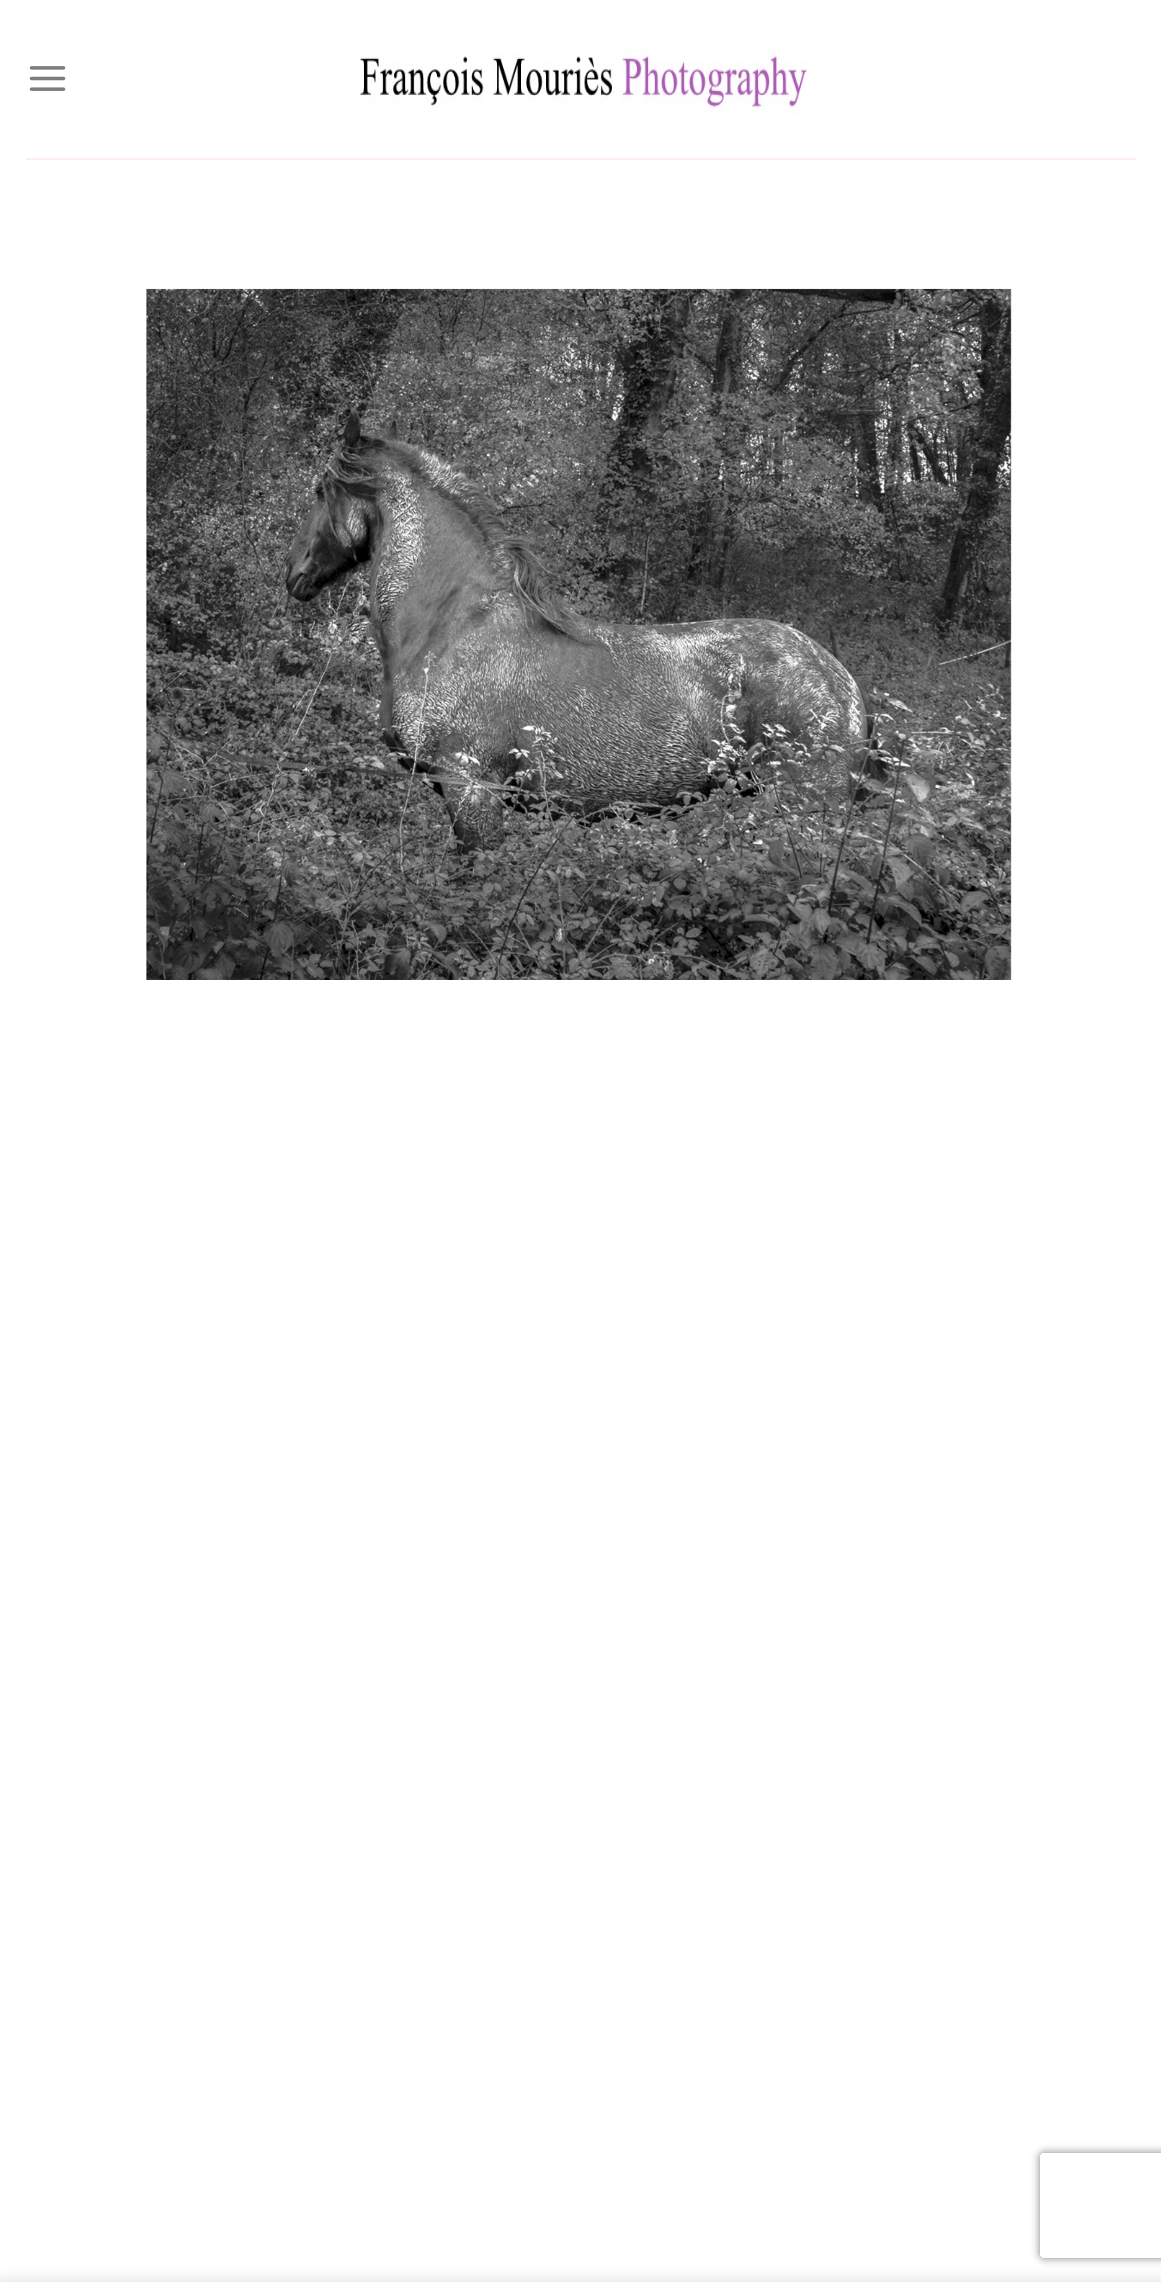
import math
import cairo

surface = cairo.ImageSurface(cairo.FORMAT_RGB24, 1161, 2282)
ctx = cairo.Context(surface)
options = cairo.FontOptions()
options.set_hint_metrics(cairo.HINT_METRICS_OFF)
options.set_hint_style(cairo.HINT_STYLE_NONE)
ctx.set_font_options(options)
ctx.set_miter_limit(4)


def set_color(code):
    ctx.set_source_rgb(*(v / 255 for v in bytes.fromhex(code[-6:])))


def fill_rect(x, y, w, h, color):
    set_color(color)
    ctx.rectangle(x, y, w, h)
    ctx.fill()


def rounded_rect(x, y, w, h, r):
    ctx.new_sub_path()
    for i, (u, v) in enumerate([(x + w - r, y + h - r), (x + r, y + h - r), (x + r, y + r), (x + w - r, y + r)]):
        ctx.arc(u, v, r, i * math.pi / 2, (i + 1) * math.pi / 2)
    ctx.close_path()


def draw_shadow(x, y, w, h, r, blur, alpha):
    ctx.push_group_with_content(cairo.CONTENT_ALPHA)
    ctx.set_operator(cairo.OPERATOR_SOURCE)
    for i in range(15, -16, -2):
        e = blur * i / 6
        if min(w, h) + 2 * e > 0:
            ctx.set_source_rgba(0, 0, 0, alpha * math.erfc((i - 1) / 8.5) / 2)
            rounded_rect(x - e, y - e, w + 2 * e, h + 2 * e, max(0, min(r + e + blur * .6, min(w, h) / 2 + e)))
            ctx.fill()
    ctx.mask(ctx.pop_group())


def draw_image(path, x, y, w, h):
    ctx.save()
    ctx.set_source_surface(cairo.ImageSurface.create_from_png(path), x, y)
    ctx.rectangle(x, y, w, h)
    ctx.fill()
    ctx.restore()


set_color("#ffffff")
ctx.paint()
draw_image("assets/img1.png", 29, 66, 37, 25)
draw_image("assets/img2.png", 360, 42, 450, 74)
fill_rect(26, 158, 1110, 2, "#fdeeee")
draw_image("assets/img3.png", 146, 288, 866, 692)
ctx.save()
ctx.set_fill_rule(cairo.FILL_RULE_EVEN_ODD)
ctx.new_path()
ctx.move_to(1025, 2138)
ctx.line_to(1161, 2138)
ctx.line_to(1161, 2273)
ctx.line_to(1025, 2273)
ctx.close_path()
ctx.move_to(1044, 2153)
ctx.line_to(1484, 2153)
ctx.curve_to(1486, 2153, 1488, 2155, 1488, 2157)
ctx.line_to(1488, 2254)
ctx.curve_to(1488, 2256, 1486, 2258, 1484, 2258)
ctx.line_to(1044, 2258)
ctx.curve_to(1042, 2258, 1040, 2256, 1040, 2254)
ctx.line_to(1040, 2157)
ctx.curve_to(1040, 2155, 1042, 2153, 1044, 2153)
ctx.close_path()
ctx.clip()
set_color("#808080")
draw_shadow(1040, 2153, 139, 105, 4, 4.5, 1)
ctx.restore()
set_color("#000000")
draw_shadow(0, 2282, 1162, 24, 0, 8, 0.14)
surface.write_to_png("output.png")
